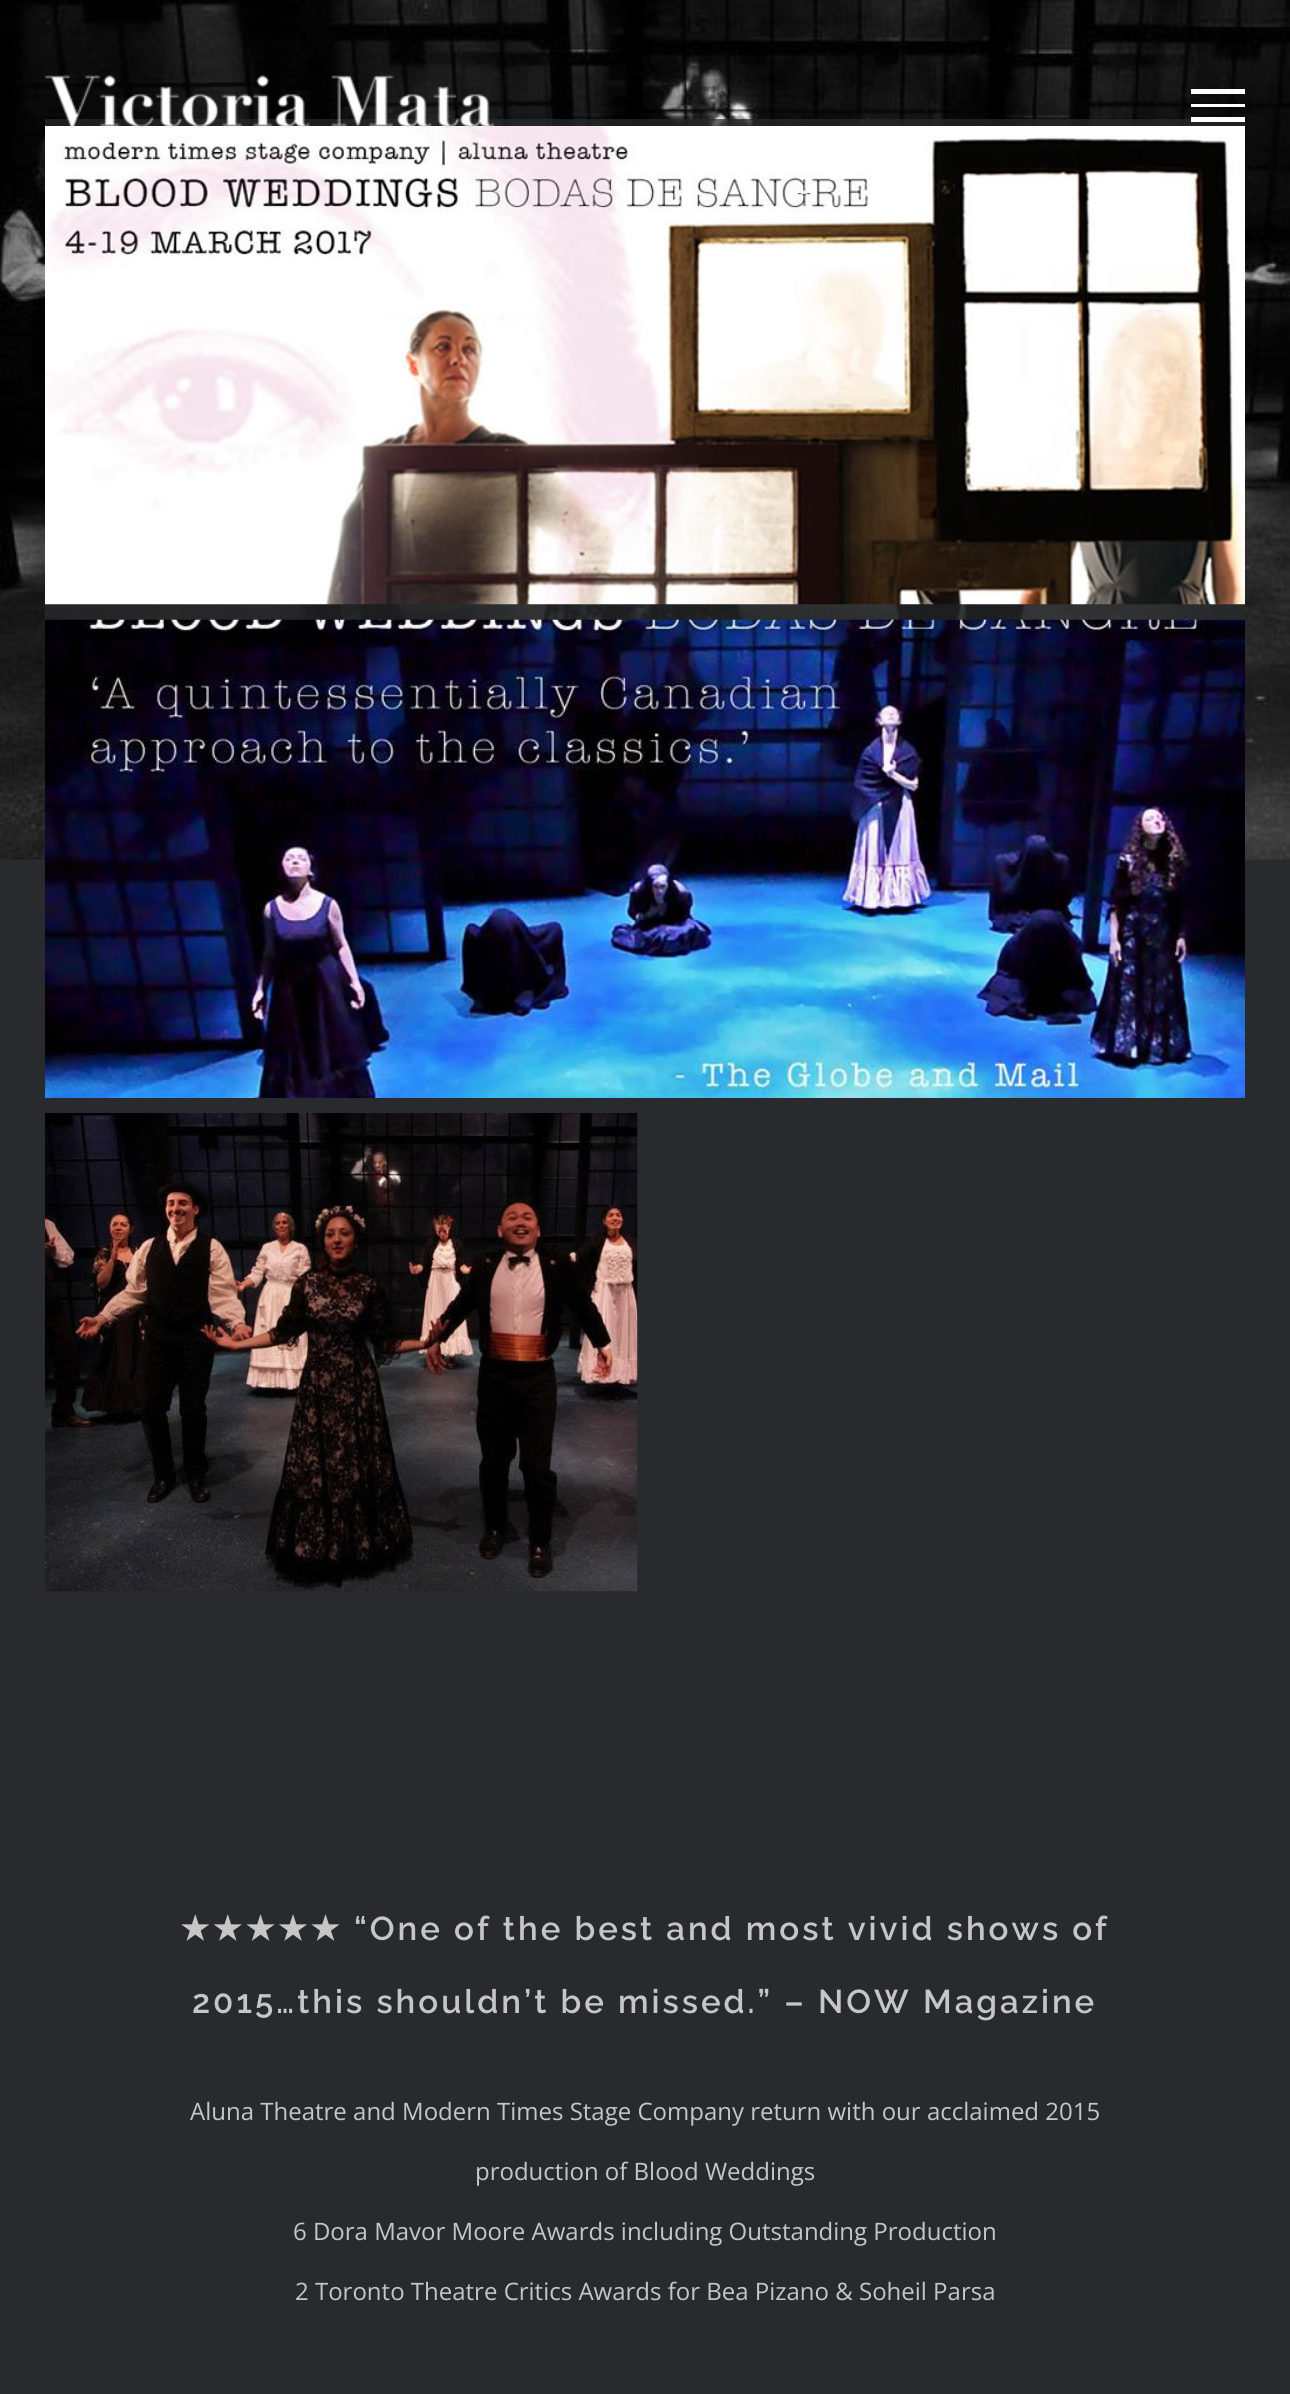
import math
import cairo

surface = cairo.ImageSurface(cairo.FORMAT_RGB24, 1290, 2394)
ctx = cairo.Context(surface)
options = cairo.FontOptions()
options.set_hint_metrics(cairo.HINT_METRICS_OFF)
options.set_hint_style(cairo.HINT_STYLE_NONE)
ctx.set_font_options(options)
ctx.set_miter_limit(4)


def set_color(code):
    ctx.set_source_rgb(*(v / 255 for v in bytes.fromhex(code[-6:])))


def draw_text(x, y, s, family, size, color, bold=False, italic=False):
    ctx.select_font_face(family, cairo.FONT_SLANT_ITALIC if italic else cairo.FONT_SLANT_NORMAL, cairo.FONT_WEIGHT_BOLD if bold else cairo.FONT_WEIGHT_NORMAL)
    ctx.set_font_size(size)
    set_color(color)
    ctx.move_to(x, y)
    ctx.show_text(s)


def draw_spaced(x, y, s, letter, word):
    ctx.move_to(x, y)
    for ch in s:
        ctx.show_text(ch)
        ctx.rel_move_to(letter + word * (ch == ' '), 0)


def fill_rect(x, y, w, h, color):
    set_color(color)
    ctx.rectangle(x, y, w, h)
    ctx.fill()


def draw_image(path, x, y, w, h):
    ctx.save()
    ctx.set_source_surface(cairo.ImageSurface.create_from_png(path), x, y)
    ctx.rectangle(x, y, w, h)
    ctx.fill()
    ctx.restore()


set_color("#282a2d")
ctx.paint()
draw_image("assets/img2.png", 0, 0, 1290, 860)
ctx.set_source_rgba(0.157, 0.165, 0.176, 0.71)
ctx.rectangle(45, 119, 1200, 741)
ctx.fill()
draw_image("assets/img3.png", 45, 126, 1200, 479)
draw_image("assets/img1.png", 45, 75, 450, 53)
fill_rect(1191, 89, 54, 5, "#ffffff")
fill_rect(1191, 104, 54, 3, "#ffffff")
fill_rect(1191, 117, 54, 5, "#ffffff")
draw_image("assets/img4.png", 45, 619, 1200, 479)
draw_image("assets/img5.png", 45, 1113, 593, 479)
ctx.select_font_face("DejaVu Sans", cairo.FONT_SLANT_NORMAL, cairo.FONT_WEIGHT_BOLD)
ctx.set_font_size(33)
set_color("#c6c6c6")
draw_spaced(180, 1940, "★★★★★", 3, 0)
ctx.select_font_face("Raleway SemiBold")
draw_spaced(354, 1940, "“One of the best and most vivid shows of", 3, 0)
draw_spaced(192, 2013, "2015…this shouldn’t be missed.” – NOW Magazine", 3, 0)
draw_text(190, 2120, "Aluna Theatre and Modern Times Stage Company return with our acclaimed 2015", "Open Sans", 24, "#c6c6c6")
draw_text(475, 2180, "production of Blood Weddings", "Open Sans", 24, "#c6c6c6")
draw_text(293, 2240, "6 Dora Mavor Moore Awards including Outstanding Production", "Open Sans", 24, "#c6c6c6")
draw_text(295, 2300, "2 Toronto Theatre Critics Awards for Bea Pizano & Soheil Parsa", "Open Sans", 24, "#c6c6c6")
surface.write_to_png("output.png")
